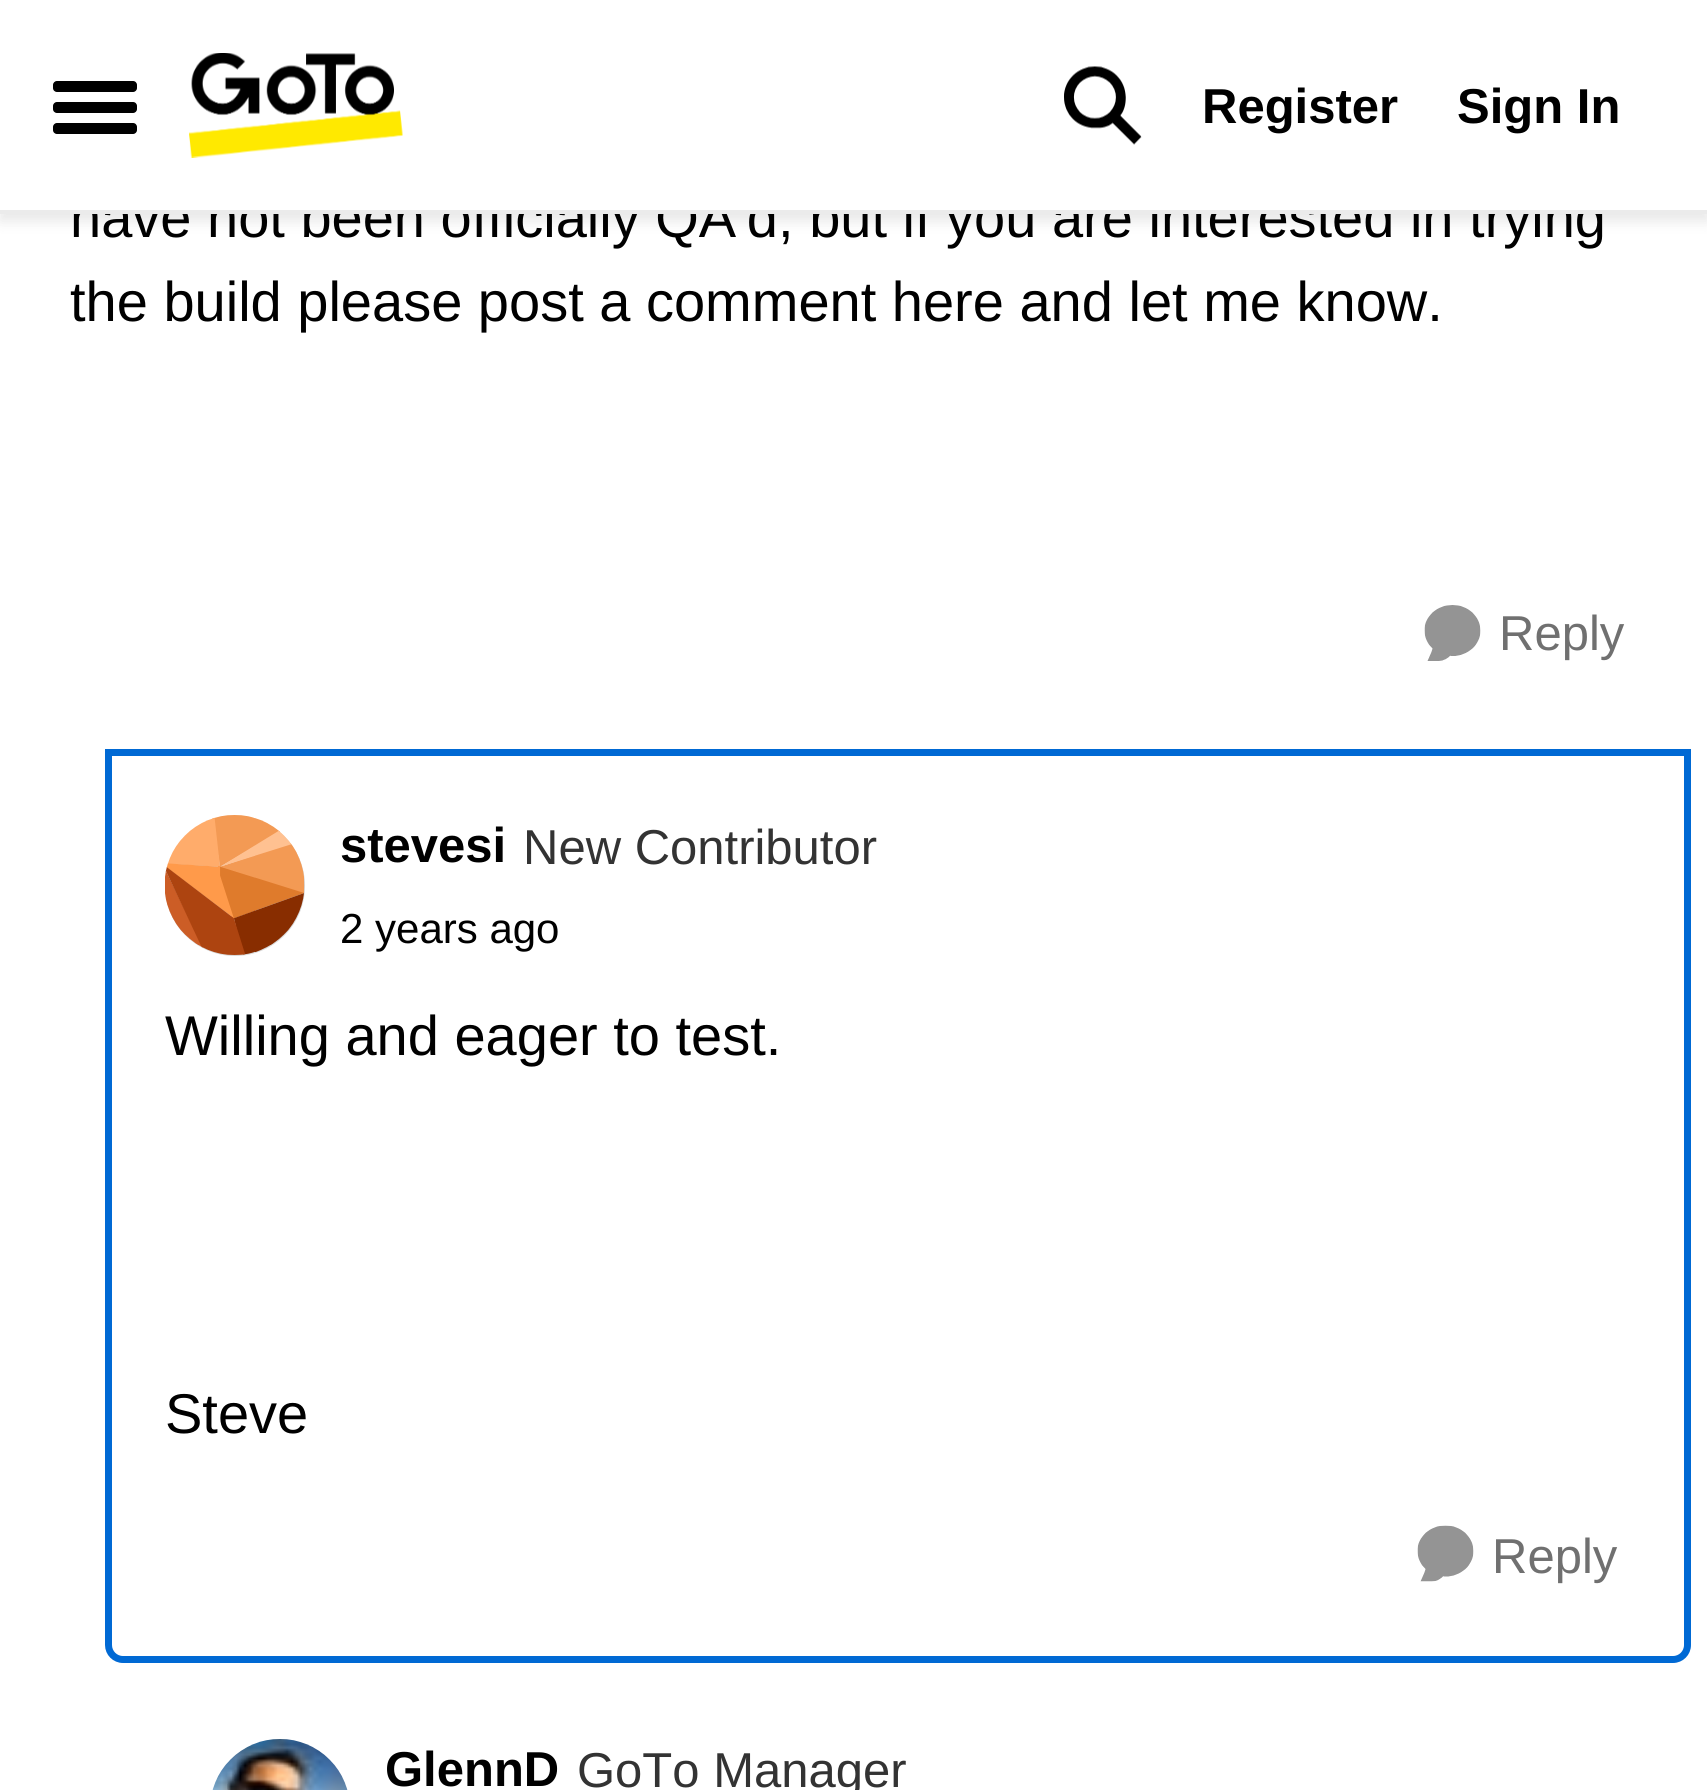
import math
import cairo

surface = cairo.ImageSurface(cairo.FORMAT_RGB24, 1707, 1790)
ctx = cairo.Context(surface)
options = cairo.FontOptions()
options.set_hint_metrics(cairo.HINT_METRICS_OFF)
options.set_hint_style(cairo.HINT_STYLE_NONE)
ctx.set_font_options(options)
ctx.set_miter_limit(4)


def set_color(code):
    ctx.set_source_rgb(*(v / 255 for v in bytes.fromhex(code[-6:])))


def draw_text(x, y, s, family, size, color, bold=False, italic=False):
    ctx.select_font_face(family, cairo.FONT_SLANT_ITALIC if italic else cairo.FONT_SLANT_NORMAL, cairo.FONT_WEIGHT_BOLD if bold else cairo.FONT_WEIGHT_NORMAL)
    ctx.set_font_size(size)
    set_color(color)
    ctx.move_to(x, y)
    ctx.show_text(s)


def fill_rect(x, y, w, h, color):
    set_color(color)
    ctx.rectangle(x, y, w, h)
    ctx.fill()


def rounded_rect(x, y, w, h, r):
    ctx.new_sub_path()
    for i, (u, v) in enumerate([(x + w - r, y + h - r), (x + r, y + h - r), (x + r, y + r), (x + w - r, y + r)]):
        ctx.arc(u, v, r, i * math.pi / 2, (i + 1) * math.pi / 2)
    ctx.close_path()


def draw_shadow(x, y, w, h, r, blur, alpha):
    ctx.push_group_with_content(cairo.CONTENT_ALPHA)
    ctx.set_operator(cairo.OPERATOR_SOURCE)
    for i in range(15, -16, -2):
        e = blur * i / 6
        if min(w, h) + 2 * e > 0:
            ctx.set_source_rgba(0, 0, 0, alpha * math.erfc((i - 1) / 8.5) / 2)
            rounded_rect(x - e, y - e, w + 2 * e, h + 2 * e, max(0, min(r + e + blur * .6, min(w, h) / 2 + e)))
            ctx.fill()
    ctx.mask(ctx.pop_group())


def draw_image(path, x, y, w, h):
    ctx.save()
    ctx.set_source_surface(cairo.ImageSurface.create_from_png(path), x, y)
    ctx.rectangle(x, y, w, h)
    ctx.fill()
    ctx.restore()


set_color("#ffffff")
ctx.paint()
set_color("#333333")
draw_shadow(0, 7, 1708, 214, 0, 7, 0.12)
draw_text(70, 237, "have not been officially QA'd, but if you are interested in trying", "Liberation Sans", 56, "#000000")
fill_rect(0, 0, 1707, 210, "#ffffff")
fill_rect(0, 210, 1707, 4, "#ebebeb")
set_color("#000000")
rounded_rect(53, 81, 84, 11, 4)
ctx.fill()
rounded_rect(53, 102, 84, 11, 4)
ctx.fill()
rounded_rect(53, 123, 84, 11, 4)
ctx.fill()
draw_image("assets/img1.png", 189, 53, 214, 105)
draw_image("assets/img2.png", 1064, 66, 78, 79)
draw_text(1202, 123, "Register", "Liberation Sans", 49, "#000000", bold=True)
draw_text(1457, 123, "Sign In", "Liberation Sans", 49, "#000000", bold=True)
draw_text(70, 321, "the build please post a comment here and let me know.", "Liberation Sans", 56, "#000000")
draw_image("assets/img3.png", 1424, 605, 57, 56)
draw_text(1499, 650, "Reply", "Liberation Sans", 49, "#707070")
ctx.new_path()
ctx.move_to(108.5, 752.5)
ctx.line_to(1687.5, 752.5)
ctx.line_to(1687.5, 1645)
ctx.curve_to(1687.5, 1653, 1681, 1659.5, 1673, 1659.5)
ctx.line_to(123, 1659.5)
ctx.curve_to(115, 1659.5, 108.5, 1653, 108.5, 1645)
ctx.close_path()
set_color("#0069d4")
ctx.set_line_width(7)
ctx.stroke()
set_color("#d9d9d9")
ctx.arc(235, 886, 70, 0, 2 * math.pi)
ctx.fill()
draw_image("assets/img4.png", 165, 815, 140, 140)
draw_text(340, 862, "stevesi", "Liberation Sans", 49, "#000000", bold=True)
draw_text(523, 864, "New Contributor", "Liberation Sans", 49, "#333333")
draw_text(340, 943, "2 years ago", "Liberation Sans", 42, "#000000")
draw_text(165, 1055, "Willing and eager to test.", "Liberation Sans", 56, "#000000")
draw_text(165, 1433, "Steve", "Liberation Sans", 56, "#000000")
draw_image("assets/img5.png", 1417, 1525, 57, 57)
draw_text(1492, 1573, "Reply", "Liberation Sans", 49, "#707070")
draw_image("assets/img6.png", 212, 1739, 136, 51)
draw_text(385, 1786, "GlennD", "Liberation Sans", 49, "#000000", bold=True)
draw_text(577, 1787, "GoTo Manager", "Liberation Sans", 49, "#333333")
surface.write_to_png("output.png")
